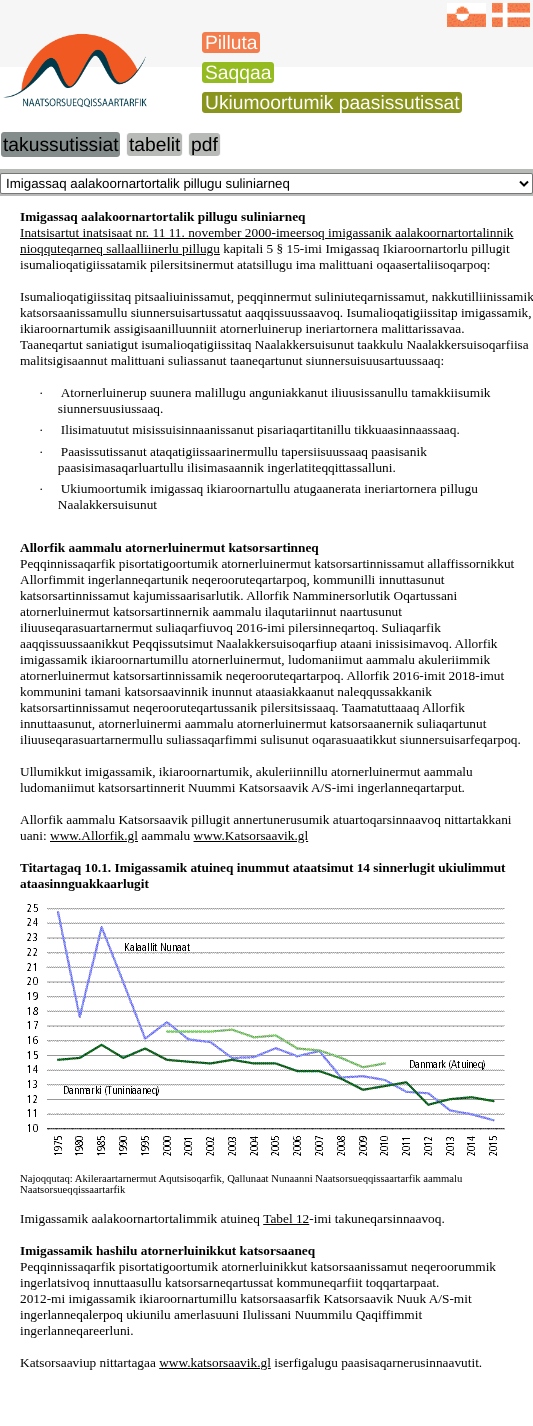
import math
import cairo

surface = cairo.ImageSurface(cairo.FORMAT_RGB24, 533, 1426)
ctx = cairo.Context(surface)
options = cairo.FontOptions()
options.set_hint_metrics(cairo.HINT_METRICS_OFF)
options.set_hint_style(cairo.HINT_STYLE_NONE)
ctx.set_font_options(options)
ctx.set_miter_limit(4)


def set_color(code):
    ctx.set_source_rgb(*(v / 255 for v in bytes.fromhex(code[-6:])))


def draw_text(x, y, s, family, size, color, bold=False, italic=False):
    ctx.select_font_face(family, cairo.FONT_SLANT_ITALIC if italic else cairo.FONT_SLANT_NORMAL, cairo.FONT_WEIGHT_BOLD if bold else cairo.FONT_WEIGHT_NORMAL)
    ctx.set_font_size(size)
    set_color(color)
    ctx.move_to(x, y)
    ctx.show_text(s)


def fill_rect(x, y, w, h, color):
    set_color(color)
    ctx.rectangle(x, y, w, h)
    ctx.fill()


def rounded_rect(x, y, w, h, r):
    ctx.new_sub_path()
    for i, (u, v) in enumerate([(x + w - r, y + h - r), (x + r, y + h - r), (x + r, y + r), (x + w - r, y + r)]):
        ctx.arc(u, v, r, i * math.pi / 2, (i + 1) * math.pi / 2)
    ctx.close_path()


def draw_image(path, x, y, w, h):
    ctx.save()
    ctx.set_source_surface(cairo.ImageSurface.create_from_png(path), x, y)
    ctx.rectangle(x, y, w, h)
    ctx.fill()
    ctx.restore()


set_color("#ffffff")
ctx.paint()
fill_rect(0, 0, 533, 67, "#f6f6f7")
draw_image("assets/img1.png", 447, 3, 39, 24)
draw_image("assets/img2.png", 492, 3, 38, 24)
draw_image("assets/img3.png", 3, 33, 144, 75)
set_color("#f47d4d")
rounded_rect(202, 32, 58, 21, 3)
ctx.fill()
draw_text(205, 49, "Pilluta", "Liberation Sans", 19.25, "#ffffff")
set_color("#94bb1f")
rounded_rect(202, 62, 72, 21, 3)
ctx.fill()
draw_text(205, 79, "Saqqaa", "Liberation Sans", 19.25, "#ffffff")
set_color("#8a951e")
rounded_rect(202, 92, 260, 21, 3)
ctx.fill()
draw_text(205, 109, "Ukiumoortumik paasissutissat", "Liberation Sans", 19.25, "#ffffff")
set_color("#848c8c")
rounded_rect(1, 132, 119, 25, 3)
ctx.fill()
draw_text(3, 151, "takussutissiat", "Liberation Sans", 19.25, "#000000")
set_color("#f6f6f7")
rounded_rect(126, 133, 57, 23, 3)
ctx.fill()
set_color("#b8bab8")
rounded_rect(127, 133, 55, 23, 3)
ctx.fill()
draw_text(129, 151, "tabelit", "Liberation Sans", 19.25, "#000000")
set_color("#f6f6f7")
rounded_rect(188, 133, 33, 23, 3)
ctx.fill()
set_color("#b8bab8")
rounded_rect(189, 133, 31, 23, 3)
ctx.fill()
draw_text(191, 151, "pdf", "Liberation Sans", 19.25, "#000000")
fill_rect(0, 169, 533, 27, "#b8bab8")
set_color("#ffffff")
rounded_rect(0.5, 173.5, 532, 20, 1.5)
ctx.fill_preserve()
set_color("#767676")
ctx.set_line_width(1)
ctx.stroke()
ctx.new_path()
ctx.move_to(520, 181.5)
ctx.line_to(524, 185.5)
ctx.line_to(528, 181.5)
set_color("#000000")
ctx.set_line_width(2)
ctx.stroke()
draw_text(6, 188, "Imigassaq aalakoornartortalik pillugu suliniarneq", "Liberation Sans", 13.3, "#000000")
draw_image("assets/img4.png", 20, 212, 513, 1158)
surface.write_to_png("output.png")
